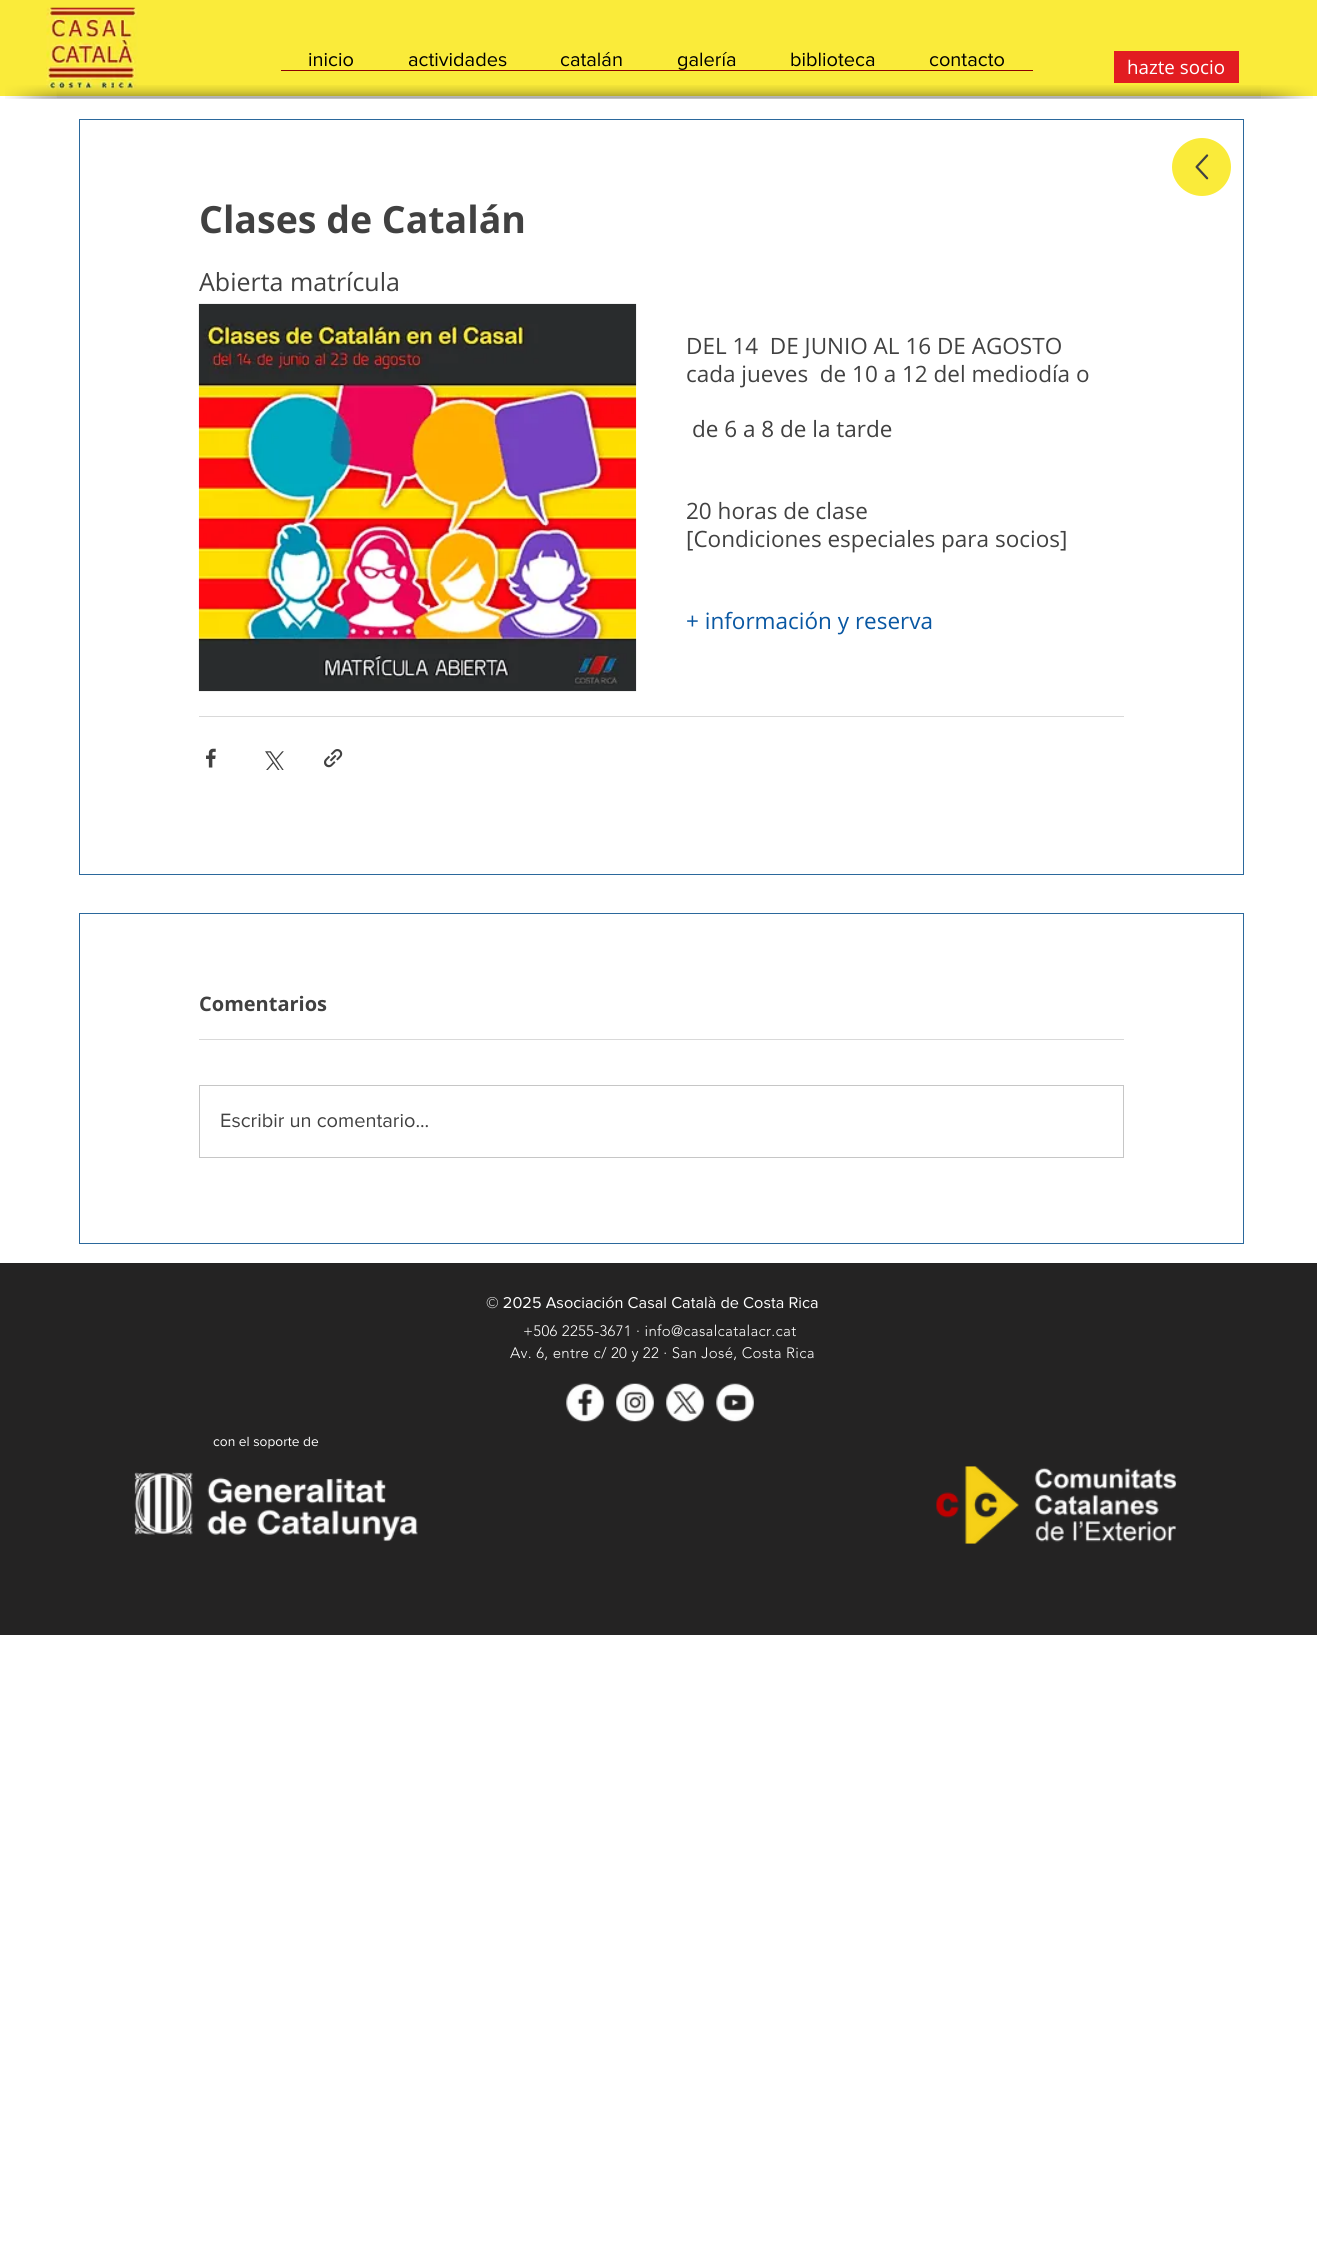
import math
import cairo

surface = cairo.ImageSurface(cairo.FORMAT_RGB24, 1317, 2264)
ctx = cairo.Context(surface)
options = cairo.FontOptions()
options.set_hint_metrics(cairo.HINT_METRICS_OFF)
options.set_hint_style(cairo.HINT_STYLE_NONE)
ctx.set_font_options(options)
ctx.set_miter_limit(4)


def set_color(code):
    ctx.set_source_rgb(*(v / 255 for v in bytes.fromhex(code[-6:])))


def draw_text(x, y, s, family, size, color, bold=False, italic=False):
    ctx.select_font_face(family, cairo.FONT_SLANT_ITALIC if italic else cairo.FONT_SLANT_NORMAL, cairo.FONT_WEIGHT_BOLD if bold else cairo.FONT_WEIGHT_NORMAL)
    ctx.set_font_size(size)
    set_color(color)
    ctx.move_to(x, y)
    ctx.show_text(s)


def draw_spaced(x, y, s, letter, word):
    ctx.move_to(x, y)
    for ch in s:
        ctx.show_text(ch)
        ctx.rel_move_to(letter + word * (ch == ' '), 0)


def fill_rect(x, y, w, h, color):
    set_color(color)
    ctx.rectangle(x, y, w, h)
    ctx.fill()


def draw_image(path, x, y, w, h):
    ctx.save()
    ctx.set_source_surface(cairo.ImageSurface.create_from_png(path), x, y)
    ctx.rectangle(x, y, w, h)
    ctx.fill()
    ctx.restore()


set_color("#ffffff")
ctx.paint()
fill_rect(0, 0, 1317, 96, "#faeb3a")
draw_image("assets/img1.png", 46, 7, 92, 82)
draw_text(308, 66, "inicio", "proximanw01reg", 20, "#000000")
draw_text(408, 66, "actividades", "proximanw01reg", 20, "#000000")
draw_text(560, 66, "catalán", "proximanw01reg", 20, "#000000")
draw_text(677, 66, "galería", "proximanw01reg", 20, "#000000")
draw_text(790, 66, "biblioteca", "proximanw01reg", 20, "#000000")
draw_text(929, 66, "contacto", "proximanw01reg", 20, "#000000")
fill_rect(281, 70, 752, 1, "#8b0000")
fill_rect(1114, 51, 125, 32, "#e21c21")
draw_text(1127, 74, "hazte socio", "Open Sans", 18.75, "#ffffff")
draw_image("assets/img2.png", 56, 85, 1206, 14)
draw_image("assets/img3.png", 5, 85, 52, 14)
draw_image("assets/img4.png", 1261, 85, 52, 14)
ctx.rectangle(79.5, 119.5, 1164, 755)
set_color("#2b689c")
ctx.set_line_width(1)
ctx.stroke()
set_color("#faeb3a")
ctx.new_path()
ctx.move_to(1172, 167)
ctx.curve_to(1172, 151, 1186, 138, 1202, 138)
ctx.curve_to(1218, 138, 1231, 151, 1231, 167)
ctx.curve_to(1231, 183, 1218, 196, 1202, 196)
ctx.curve_to(1186, 196, 1172, 183, 1172, 167)
ctx.close_path()
ctx.fill()
draw_image("assets/img5.png", 1195, 154, 14, 26)
draw_text(199, 233, "Clases de Catalán", "Open Sans", 37.5, "#414141", bold=True)
draw_text(199, 291, "Abierta matrícula", "Open Sans", 25, "#414141")
draw_image("assets/img6.png", 198, 303, 439, 389)
draw_text(686, 354, "DEL 14  DE JUNIO AL 16 DE AGOSTO", "Open Sans", 22.5, "#414141")
draw_text(686, 382, "cada jueves  de 10 a 12 del mediodía o", "Open Sans", 22.5, "#414141")
draw_text(692, 437, "de 6 a 8 de la tarde", "Open Sans", 22.5, "#414141")
draw_text(686, 519, "20 horas de clase", "Open Sans", 22.5, "#414141")
draw_text(686, 547, "[Condiciones especiales para socios]", "Open Sans", 22.5, "#414141")
draw_text(686, 629, "+ información y reserva", "Open Sans", 22.5, "#0957a2")
fill_rect(199, 716, 925, 1, "#d9d9d9")
draw_image("assets/img7.png", 206, 748, 10, 20)
draw_image("assets/img8.png", 265, 751, 19, 19)
draw_image("assets/img9.png", 324, 749, 19, 19)
ctx.rectangle(79.5, 913.5, 1164, 330)
set_color("#2b689c")
ctx.stroke()
draw_text(199, 1011, "Comentarios", "Open Sans", 20, "#414141", bold=True)
fill_rect(199, 1039, 925, 1, "#d9d9d9")
ctx.rectangle(199.5, 1085.5, 924, 72)
set_color("#c6c6c6")
ctx.stroke()
draw_text(220, 1127, "Escribir un comentario...", "proximanw01reg", 20, "#414141")
fill_rect(0, 1263, 1317, 372, "#242323")
draw_text(486, 1308, "© 2025 Asociación Casal Català de Costa Rica", "proximanw01reg", 16.25, "#ffffff")
ctx.select_font_face("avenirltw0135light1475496 Light")
ctx.set_font_size(15)
draw_spaced(523, 1336, "+506 2255-3671 · info@casalcatalacr.cat", 0.3, 0)
draw_spaced(510, 1358, "Av. 6, entre c/ 20 y 22 · San José, Costa Rica", 0.3, 0)
draw_image("assets/img10.png", 566, 1383, 38, 39)
draw_image("assets/img11.png", 616, 1383, 38, 39)
draw_image("assets/img12.png", 666, 1383, 38, 39)
draw_image("assets/img13.png", 716, 1383, 38, 39)
draw_text(213, 1446, "con el soporte de", "proximanw01reg", 13.75, "#ffffff")
draw_image("assets/img14.png", 134, 1472, 284, 70)
draw_image("assets/img15.png", 936, 1466, 241, 78)
surface.write_to_png("output.png")
